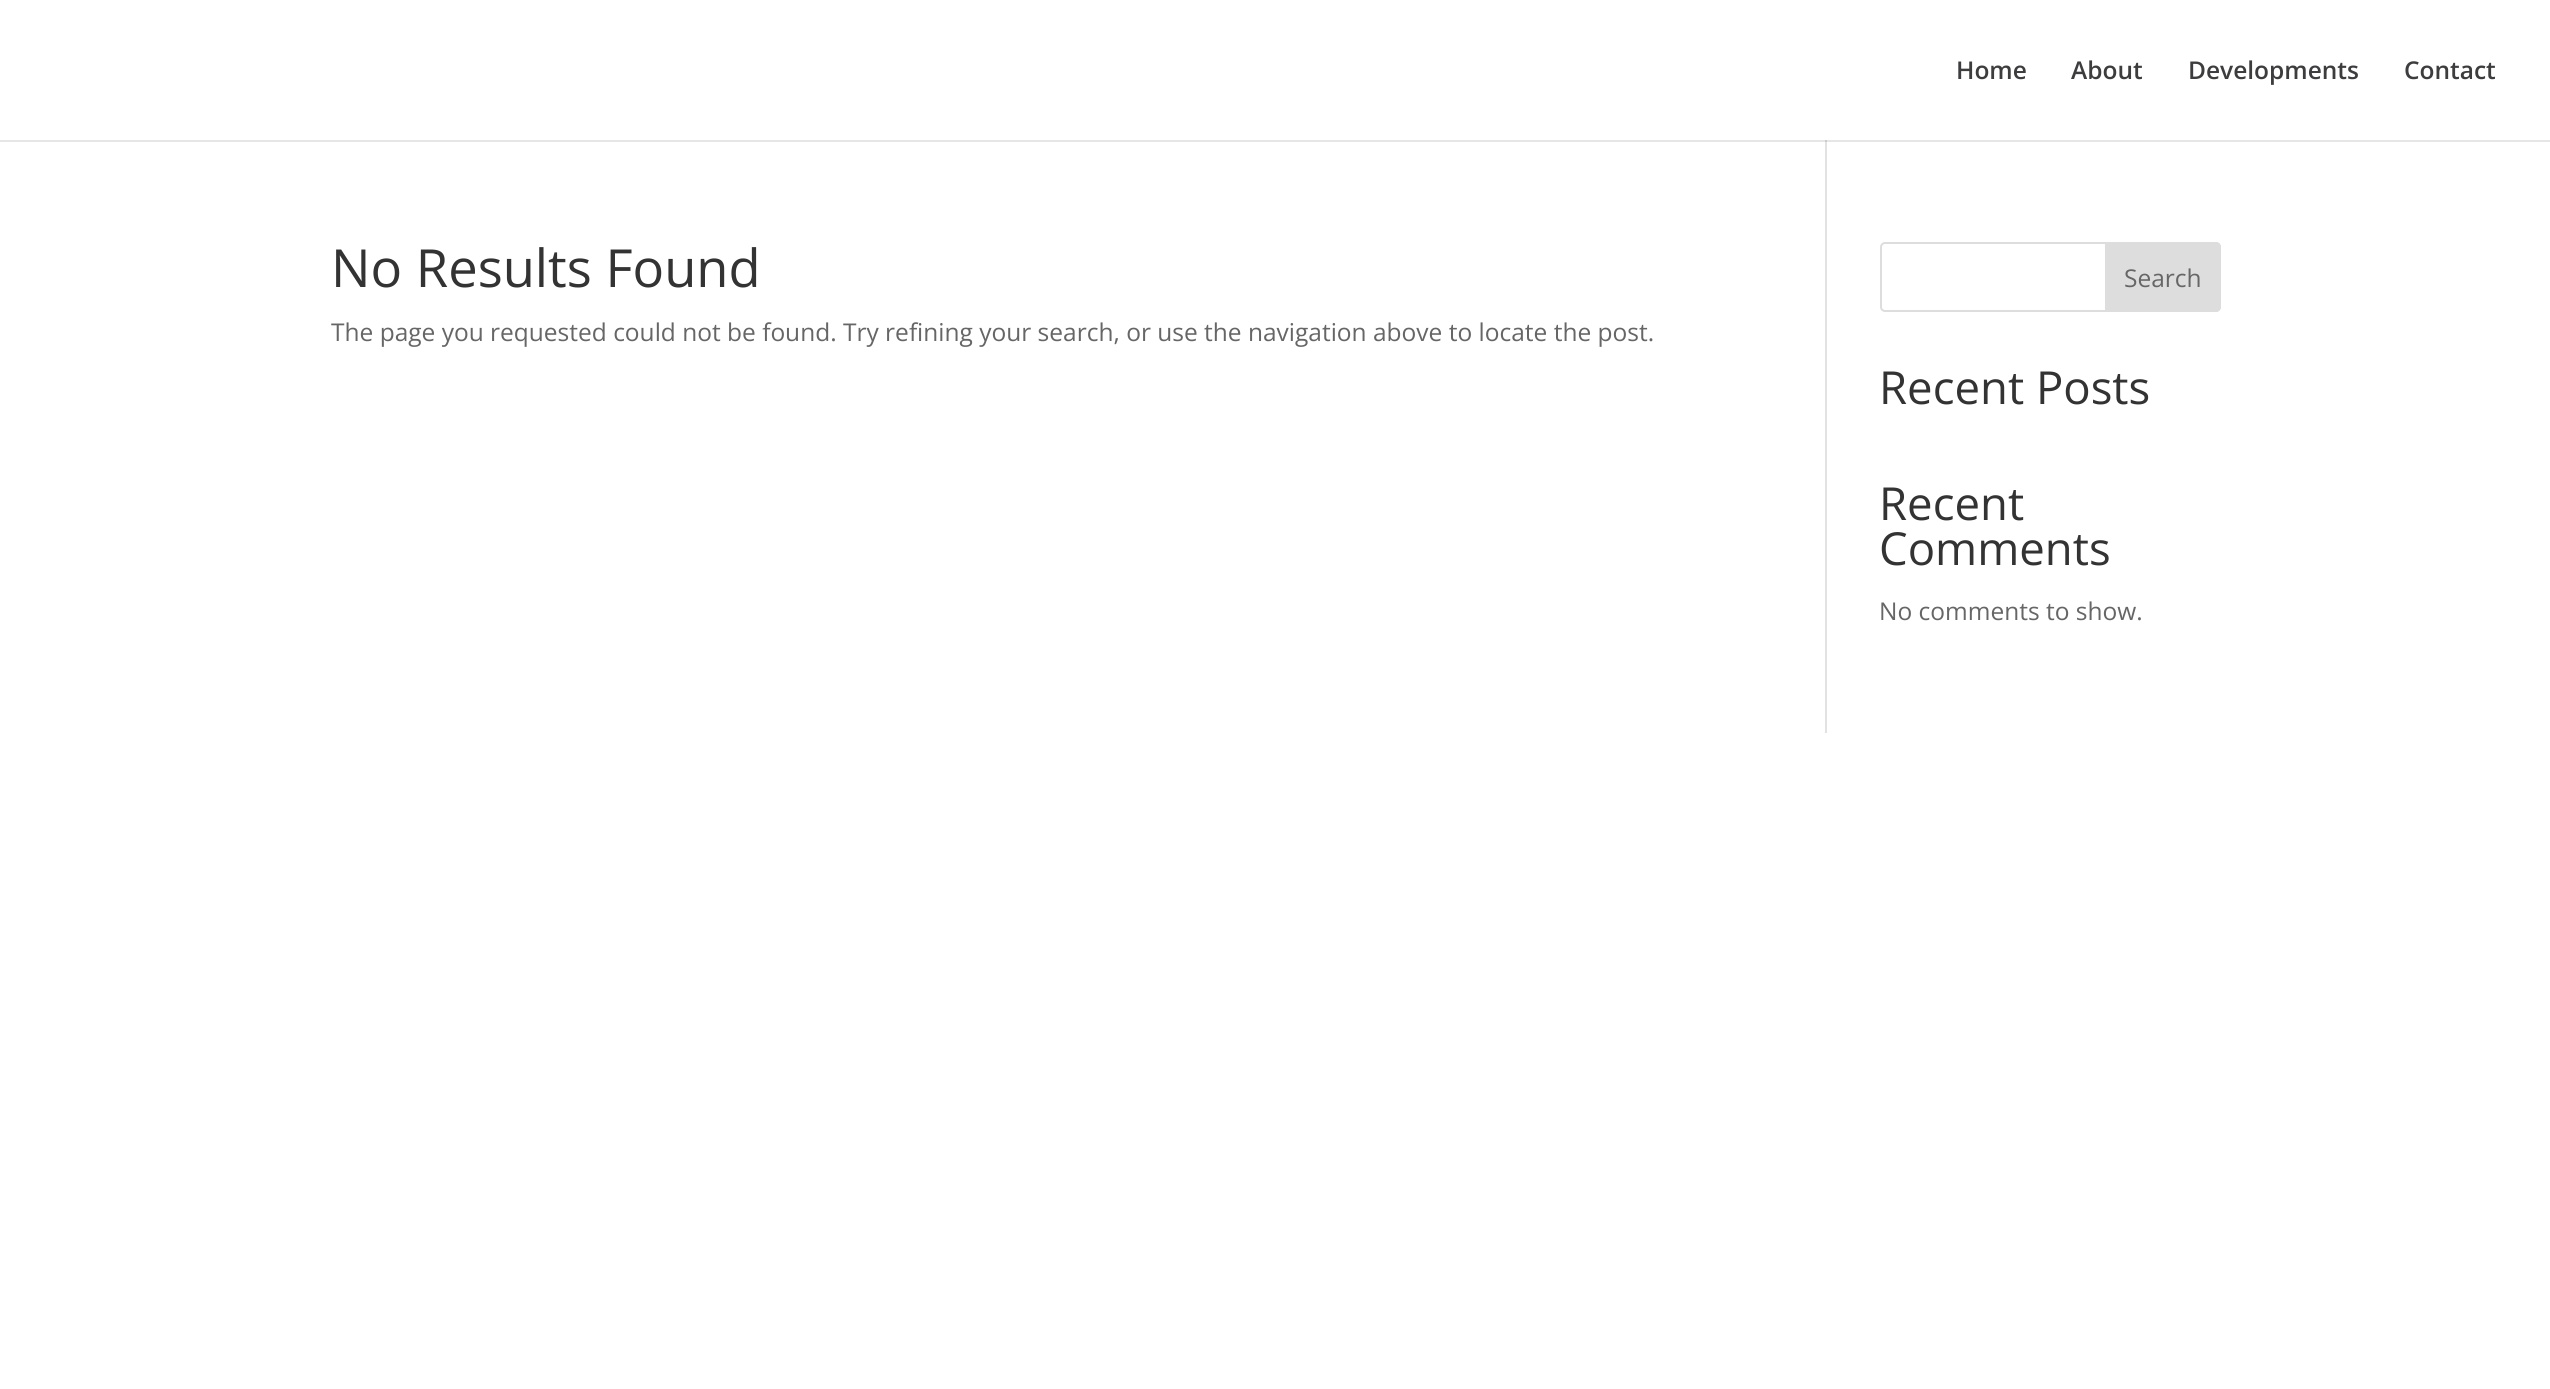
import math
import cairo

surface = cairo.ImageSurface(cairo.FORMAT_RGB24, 2550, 1389)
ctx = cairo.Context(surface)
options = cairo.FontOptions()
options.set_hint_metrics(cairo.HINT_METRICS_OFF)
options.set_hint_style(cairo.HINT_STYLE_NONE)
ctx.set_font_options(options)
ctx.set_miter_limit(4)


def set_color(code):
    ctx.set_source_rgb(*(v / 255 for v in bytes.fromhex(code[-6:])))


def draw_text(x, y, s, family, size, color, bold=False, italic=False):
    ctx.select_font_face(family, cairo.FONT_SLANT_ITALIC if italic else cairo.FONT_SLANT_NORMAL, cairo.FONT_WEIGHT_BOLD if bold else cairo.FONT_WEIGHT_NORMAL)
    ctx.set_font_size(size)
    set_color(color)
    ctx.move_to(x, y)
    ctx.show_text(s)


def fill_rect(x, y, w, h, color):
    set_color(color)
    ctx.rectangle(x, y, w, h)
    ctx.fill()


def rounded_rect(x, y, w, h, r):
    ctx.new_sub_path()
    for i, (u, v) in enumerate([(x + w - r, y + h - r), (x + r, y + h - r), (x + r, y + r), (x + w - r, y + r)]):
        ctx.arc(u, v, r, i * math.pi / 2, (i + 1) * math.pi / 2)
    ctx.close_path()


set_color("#ffffff")
ctx.paint()
fill_rect(1825, 140, 2, 593, "#e2e2e2")
ctx.set_source_rgba(0, 0, 0, 0.1)
ctx.new_path()
ctx.move_to(0, 140)
ctx.line_to(0, 142)
ctx.line_to(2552, 142)
ctx.line_to(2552, 2)
ctx.line_to(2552, 140)
ctx.close_path()
ctx.fill()
draw_text(1956, 79, "Home", "Open Sans SemiBold", 24.5, "#3d3d3f")
draw_text(2071, 79, "About", "Open Sans SemiBold", 24.5, "#3d3d3f")
draw_text(2188, 79, "Developments", "Open Sans SemiBold", 24.5, "#3d3d3f")
draw_text(2404, 79, "Contact", "Open Sans SemiBold", 24.5, "#3d3d3f")
draw_text(331, 287, "No Results Found", "Open Sans", 52.5, "#333333")
draw_text(331, 341, "The page you requested could not be found. Try refining your search, or use the navigation above to locate the post.", "Open Sans", 24.5, "#666666")
rounded_rect(1881, 243, 339, 68, 4)
set_color("#dddddd")
ctx.stroke()
ctx.new_path()
ctx.move_to(2106, 243)
ctx.line_to(2216, 243)
ctx.curve_to(2218, 243, 2220, 245, 2220, 247)
ctx.line_to(2220, 307)
ctx.curve_to(2220, 309, 2218, 311, 2216, 311)
ctx.line_to(2106, 311)
ctx.close_path()
ctx.fill_preserve()
ctx.stroke()
draw_text(2124, 287, "Search", "Open Sans", 24.5, "#666666")
draw_text(1879, 404, "Recent Posts", "Open Sans", 45.5, "#333333")
draw_text(1879, 520, "Recent", "Open Sans", 45.5, "#333333")
draw_text(1879, 565, "Comments", "Open Sans", 45.5, "#333333")
draw_text(1879, 620, "No comments to show.", "Open Sans", 24.5, "#666666")
surface.write_to_png("output.png")
